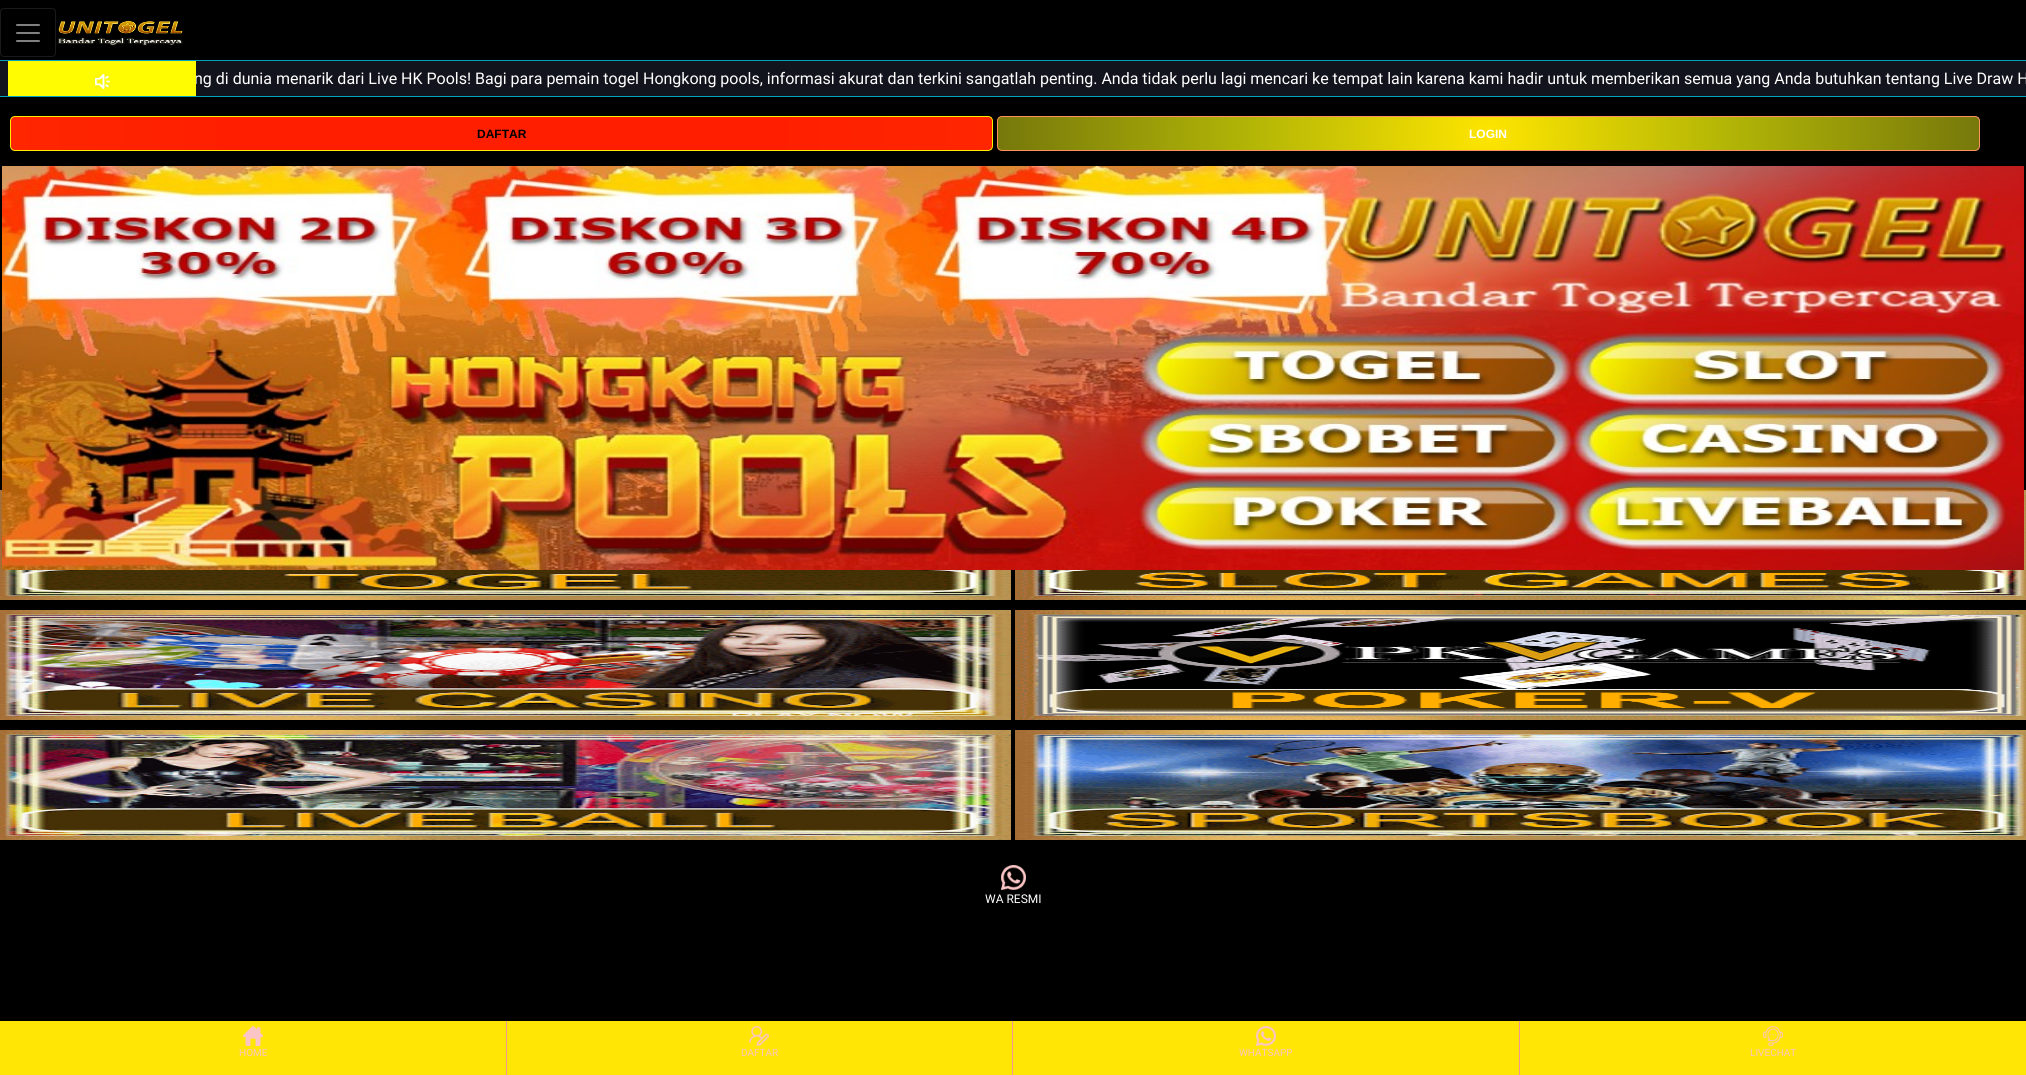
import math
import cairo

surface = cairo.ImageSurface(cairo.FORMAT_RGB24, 2026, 1075)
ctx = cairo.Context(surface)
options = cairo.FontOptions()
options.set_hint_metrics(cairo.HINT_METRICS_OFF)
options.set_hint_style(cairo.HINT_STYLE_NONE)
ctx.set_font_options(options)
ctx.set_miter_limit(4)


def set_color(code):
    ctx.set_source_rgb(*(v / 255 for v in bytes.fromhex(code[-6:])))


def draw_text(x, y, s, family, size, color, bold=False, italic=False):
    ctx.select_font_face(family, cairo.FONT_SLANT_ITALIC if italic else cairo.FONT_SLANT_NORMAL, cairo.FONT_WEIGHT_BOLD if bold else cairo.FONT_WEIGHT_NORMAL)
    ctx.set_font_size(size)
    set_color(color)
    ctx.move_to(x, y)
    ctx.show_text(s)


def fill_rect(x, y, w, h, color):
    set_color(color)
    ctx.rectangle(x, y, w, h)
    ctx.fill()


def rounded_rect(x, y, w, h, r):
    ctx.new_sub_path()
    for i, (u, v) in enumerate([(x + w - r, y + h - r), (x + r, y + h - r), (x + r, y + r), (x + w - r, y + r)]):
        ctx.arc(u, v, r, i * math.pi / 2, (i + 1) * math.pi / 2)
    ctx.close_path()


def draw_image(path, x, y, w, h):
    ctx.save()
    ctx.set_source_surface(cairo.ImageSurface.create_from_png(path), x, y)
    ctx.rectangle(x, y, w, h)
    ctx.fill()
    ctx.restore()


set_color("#000000")
ctx.paint()
rounded_rect(0.5, 8.5, 55, 48, 3.5)
set_color("#1a1a1a")
ctx.set_line_width(1)
ctx.stroke()
draw_image("assets/img1.png", 16, 24, 24, 18)
draw_image("assets/img2.png", 57, 20, 126, 26)
fill_rect(0, 60, 2026, 1, "#03a1bc")
fill_rect(0, 96, 2026, 1, "#03a1bc")
fill_rect(0, 61, 2026, 35, "#12141d")
fill_rect(8, 61, 188, 35, "#fffb00")
draw_image("assets/img3.png", 95, 74, 15, 15)
ctx.save()
ctx.rectangle(196, 67, 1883, 24)
ctx.clip()
draw_text(194, 84, "ng di dunia menarik dari Live HK Pools! Bagi para pemain togel Hongkong pools, informasi akurat dan terkini sangatlah penting. Anda tidak perlu lagi mencari ke tempat lain karena kami hadir untuk memberikan semua yang Anda butuhkan tentang Live Draw H", "Roboto", 16, "#ffffff")
ctx.restore()
ctx.save()
rounded_rect(10, 116, 983, 35, 5)
ctx.clip()
gradient = cairo.RadialGradient(502, 134, 0, 502, 134, 491)
gradient.add_color_stop_rgba(0, 1, 0.118, 0, 1)
gradient.add_color_stop_rgba(0.49, 1, 0.118, 0, 1)
gradient.add_color_stop_rgba(1, 1, 0.149, 0, 1)
ctx.set_source(gradient)
ctx.rectangle(11, 117, 981, 33)
ctx.fill()
ctx.restore()
rounded_rect(10.5, 116.5, 982, 34, 4.5)
set_color("#ffed00")
ctx.stroke()
draw_text(477, 138, "DAFTAR", "Liberation Sans", 12, "#000000", bold=True)
ctx.save()
rounded_rect(997, 116, 983, 35, 5)
ctx.clip()
gradient = cairo.RadialGradient(1489, 134, 0, 1489, 134, 491)
gradient.add_color_stop_rgba(0, 0.996, 0.898, 0, 1)
gradient.add_color_stop_rgba(0.49, 0.698, 0.71, 0.024, 1)
gradient.add_color_stop_rgba(1, 0.463, 0.471, 0.043, 1)
ctx.set_source(gradient)
ctx.rectangle(998, 117, 981, 33)
ctx.fill()
ctx.restore()
rounded_rect(997.5, 116.5, 982, 34, 4.5)
set_color("#ff925c")
ctx.stroke()
draw_text(1469, 138, "LOGIN", "Liberation Sans", 12, "#ffffff", bold=True)
draw_image("assets/img5.png", 0, 490, 1011, 110)
draw_image("assets/img6.png", 1015, 490, 1011, 110)
draw_image("assets/img4.png", 2, 166, 2022, 404)
draw_image("assets/img7.png", 0, 610, 1011, 110)
draw_image("assets/img8.png", 1015, 610, 1011, 110)
draw_image("assets/img9.png", 0, 730, 1011, 110)
draw_image("assets/img10.png", 1015, 730, 1011, 110)
draw_image("assets/img11.png", 1001, 865, 25, 25)
draw_text(985, 903, "WA RESMI", "Roboto", 12, "#ffffff")
fill_rect(0, 1021, 506, 54, "#ffe604")
fill_rect(506, 1021, 1, 54, "#f59696")
draw_image("assets/img12.png", 243, 1026, 20, 20)
draw_text(239, 1056, "HOME", "Roboto", 10, "#fbc5c5")
fill_rect(507, 1021, 505, 54, "#ffe604")
fill_rect(1012, 1021, 1, 54, "#f59696")
draw_image("assets/img13.png", 749, 1026, 20, 20)
draw_text(741, 1056, "DAFTAR", "Roboto", 10, "#fbc5c5")
fill_rect(1013, 1021, 506, 54, "#ffe604")
fill_rect(1519, 1021, 1, 54, "#f59696")
draw_image("assets/img14.png", 1256, 1026, 20, 20)
draw_text(1239, 1056, "WHATSAPP", "Roboto", 10, "#fbc5c5")
fill_rect(1520, 1021, 506, 54, "#ffe604")
draw_image("assets/img15.png", 1763, 1026, 20, 20)
draw_text(1750, 1056, "LIVECHAT", "Roboto", 10, "#fbc5c5")
surface.write_to_png("output.png")
